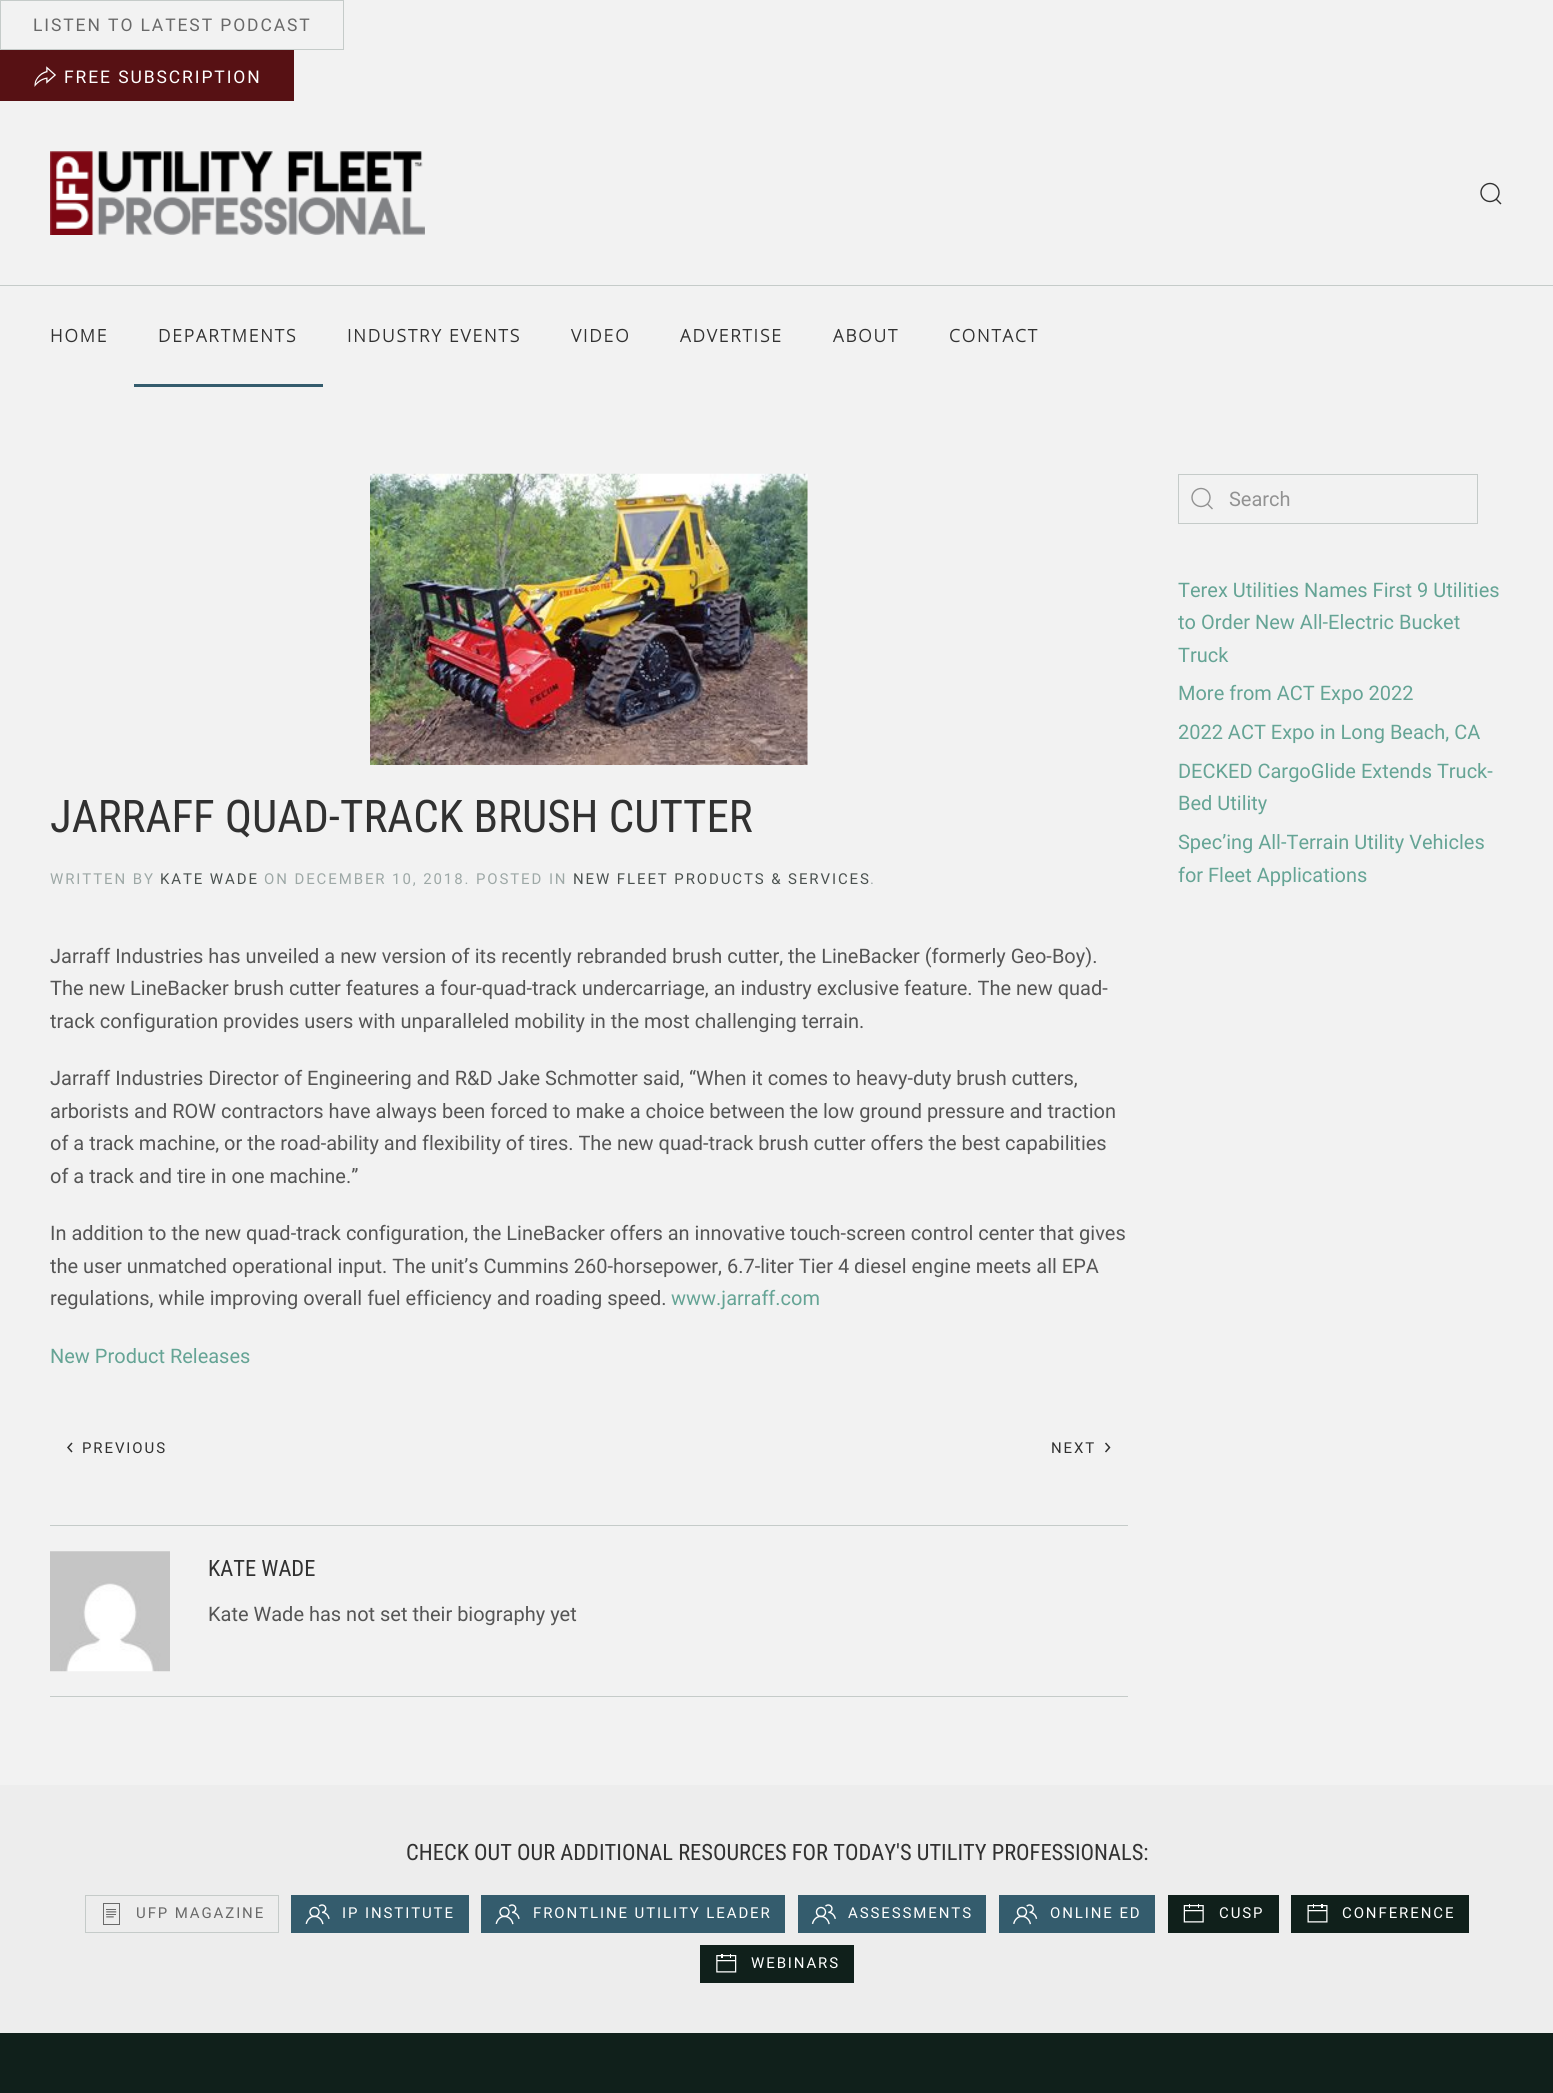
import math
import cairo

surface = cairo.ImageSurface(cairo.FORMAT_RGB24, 1553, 2093)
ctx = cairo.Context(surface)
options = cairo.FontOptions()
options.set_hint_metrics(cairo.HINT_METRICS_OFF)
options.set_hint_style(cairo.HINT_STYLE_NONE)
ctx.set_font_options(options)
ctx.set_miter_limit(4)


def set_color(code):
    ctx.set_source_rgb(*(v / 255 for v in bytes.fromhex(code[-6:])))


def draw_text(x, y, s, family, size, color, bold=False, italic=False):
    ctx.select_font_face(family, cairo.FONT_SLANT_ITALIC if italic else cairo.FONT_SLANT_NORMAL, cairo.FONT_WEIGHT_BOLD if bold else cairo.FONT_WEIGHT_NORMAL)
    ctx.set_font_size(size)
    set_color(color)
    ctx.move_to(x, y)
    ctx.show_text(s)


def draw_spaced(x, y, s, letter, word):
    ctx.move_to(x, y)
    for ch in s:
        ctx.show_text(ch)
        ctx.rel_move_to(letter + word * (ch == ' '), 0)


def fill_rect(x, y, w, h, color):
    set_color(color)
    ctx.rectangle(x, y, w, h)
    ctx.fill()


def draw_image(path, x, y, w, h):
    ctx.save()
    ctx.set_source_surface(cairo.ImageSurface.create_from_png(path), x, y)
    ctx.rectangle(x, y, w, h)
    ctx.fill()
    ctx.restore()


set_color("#f2f2f2")
ctx.paint()
ctx.rectangle(0.5, 0.5, 343, 49)
set_color("#c5cbc9")
ctx.set_line_width(1)
ctx.stroke()
ctx.select_font_face("Roboto")
ctx.set_font_size(17.5)
set_color("#696969")
draw_spaced(33, 31, "LISTEN TO LATEST PODCAST", 1.9, 0)
fill_rect(0, 50, 294, 51, "#571114")
draw_image("assets/img1.png", 34, 66, 22, 21)
set_color("#ffffff")
draw_spaced(64, 83, "FREE SUBSCRIPTION", 1.9, 0)
fill_rect(0, 285, 1553, 1, "#c5cbc9")
draw_image("assets/img2.png", 50, 151, 375, 84)
ctx.arc(1490, 192.5, 9, 0, 2 * math.pi)
set_color("#313131")
ctx.set_line_width(1.4)
ctx.stroke()
ctx.new_path()
ctx.move_to(1496, 199)
ctx.line_to(1501, 204)
ctx.close_path()
ctx.stroke()
ctx.select_font_face("Open Sans", cairo.FONT_SLANT_NORMAL, cairo.FONT_WEIGHT_BOLD)
draw_spaced(50, 342, "HOME", 1.9, 0)
draw_spaced(158, 342, "DEPARTMENTS", 1.9, 0)
fill_rect(134, 384, 189, 3, "#345c6d")
set_color("#313131")
draw_spaced(347, 342, "INDUSTRY EVENTS", 1.9, 0)
draw_spaced(571, 342, "VIDEO", 1.9, 0)
draw_spaced(680, 342, "ADVERTISE", 1.9, 0)
draw_spaced(833, 342, "ABOUT", 1.9, 0)
draw_spaced(949, 342, "CONTACT", 1.9, 0)
ctx.rectangle(1178.5, 474.5, 299, 49)
set_color("#c5cbc9")
ctx.set_line_width(1)
ctx.stroke()
ctx.arc(1201, 497.5, 9, 0, 2 * math.pi)
set_color("#929292")
ctx.set_line_width(1.4)
ctx.stroke()
ctx.new_path()
ctx.move_to(1207.5, 504)
ctx.line_to(1212.5, 509)
ctx.close_path()
ctx.stroke()
draw_text(1229, 506, "Search", "Roboto", 20, "#929292")
draw_text(1178, 597, "Terex Utilities Names First 9 Utilities", "Roboto", 20, "#65a495")
draw_text(1178, 629, "to Order New All-Electric Bucket", "Roboto", 20, "#65a495")
draw_text(1178, 662, "Truck", "Roboto", 20, "#65a495")
draw_text(1178, 700, "More from ACT Expo 2022", "Roboto", 20, "#65a495")
draw_text(1178, 739, "2022 ACT Expo in Long Beach, CA", "Roboto", 20, "#65a495")
draw_text(1178, 778, "DECKED CargoGlide Extends Truck-", "Roboto", 20, "#65a495")
draw_text(1178, 810, "Bed Utility", "Roboto", 20, "#65a495")
draw_text(1178, 849, "Spec’ing All-Terrain Utility Vehicles", "Roboto", 20, "#65a495")
draw_text(1178, 882, "for Fleet Applications", "Roboto", 20, "#65a495")
draw_image("assets/img3.png", 370, 473, 438, 292)
draw_text(50, 832, "JARRAFF QUAD-TRACK BRUSH CUTTER", "Roboto Condensed", 45, "#313131")
ctx.select_font_face("Roboto")
ctx.set_font_size(15)
set_color("#9da8a6")
draw_spaced(50, 884, "WRITTEN BY", 1.9, 0)
set_color("#4a514f")
draw_spaced(160, 884, "KATE WADE", 1.9, 0)
set_color("#9da8a6")
draw_spaced(264, 884, "ON DECEMBER 10, 2018. POSTED IN", 1.9, 0)
set_color("#4a514f")
draw_spaced(573, 884, "NEW FLEET PRODUCTS & SERVICES", 1.9, 0)
set_color("#9da8a6")
draw_spaced(870, 884, ".", 1.9, 0)
draw_text(50, 963, "Jarraff Industries has unveiled a new version of its recently rebranded brush cutter, the LineBacker (formerly Geo-Boy).", "Roboto", 20, "#555555")
draw_text(50, 995, "The new LineBacker brush cutter features a four-quad-track undercarriage, an industry exclusive feature. The new quad-", "Roboto", 20, "#555555")
draw_text(50, 1028, "track configuration provides users with unparalleled mobility in the most challenging terrain.", "Roboto", 20, "#555555")
draw_text(50, 1085, "Jarraff Industries Director of Engineering and R&D Jake Schmotter said, “When it comes to heavy-duty brush cutters,", "Roboto", 20, "#555555")
draw_text(50, 1118, "arborists and ROW contractors have always been forced to make a choice between the low ground pressure and traction", "Roboto", 20, "#555555")
draw_text(50, 1150, "of a track machine, or the road-ability and flexibility of tires. The new quad-track brush cutter offers the best capabilities", "Roboto", 20, "#555555")
draw_text(50, 1183, "of a track and tire in one machine.”", "Roboto", 20, "#555555")
draw_text(50, 1240, "In addition to the new quad-track configuration, the LineBacker offers an innovative touch-screen control center that gives", "Roboto", 20, "#555555")
draw_text(50, 1273, "the user unmatched operational input. The unit’s Cummins 260-horsepower, 6.7-liter Tier 4 diesel engine meets all EPA", "Roboto", 20, "#555555")
draw_text(50, 1305, "regulations, while improving overall fuel efficiency and roading speed.", "Roboto", 20, "#555555")
draw_text(671, 1305, "www.jarraff.com", "Roboto", 20, "#65a495")
draw_text(50, 1363, "New Product Releases", "Roboto", 20, "#65a495")
ctx.new_path()
ctx.move_to(72, 1452)
ctx.line_to(68, 1447.5)
ctx.line_to(72, 1443)
set_color("#313131")
ctx.set_line_width(1.5)
ctx.stroke()
ctx.set_font_size(15)
draw_spaced(82, 1453, "PREVIOUS", 1.9, 0)
draw_spaced(1051, 1453, "NEXT", 1.9, 0)
ctx.new_path()
ctx.move_to(1105.5, 1443)
ctx.line_to(1109.5, 1447.5)
ctx.line_to(1105.5, 1452)
ctx.stroke()
fill_rect(50, 1525, 1078, 1, "#c5cbc9")
draw_image("assets/img4.png", 50, 1551, 120, 121)
draw_text(208, 1576, "KATE WADE", "Roboto Condensed", 22.5, "#313131")
draw_text(208, 1621, "Kate Wade has not set their biography yet", "Roboto", 20, "#555555")
fill_rect(50, 1696, 1078, 1, "#c5cbc9")
fill_rect(0, 1785, 1553, 248, "#ededed")
draw_text(406, 1860, "CHECK OUT OUR ADDITIONAL RESOURCES FOR TODAY'S UTILITY PROFESSIONALS:", "Roboto Condensed", 22.5, "#313131")
ctx.rectangle(85.5, 1895.5, 193, 37)
set_color("#c5cbc9")
ctx.set_line_width(1)
ctx.stroke()
draw_image("assets/img5.png", 103, 1903, 17, 22)
ctx.select_font_face("Roboto")
ctx.set_font_size(15)
set_color("#696969")
draw_spaced(136, 1918, "UFP MAGAZINE", 1.9, 0)
fill_rect(291, 1895, 178, 38, "#345c6d")
draw_image("assets/img6.png", 305, 1904, 25, 21)
set_color("#ffffff")
draw_spaced(342, 1918, "IP INSTITUTE", 1.9, 0)
fill_rect(481, 1895, 304, 38, "#345c6d")
draw_image("assets/img6.png", 495, 1904, 25, 21)
set_color("#ffffff")
draw_spaced(533, 1918, "FRONTLINE UTILITY LEADER", 1.9, 0)
fill_rect(798, 1895, 188, 38, "#345c6d")
draw_image("assets/img7.png", 811, 1904, 25, 21)
set_color("#ffffff")
draw_spaced(848, 1918, "ASSESSMENTS", 1.9, 0)
fill_rect(999, 1895, 156, 38, "#345c6d")
draw_image("assets/img8.png", 1013, 1904, 25, 21)
set_color("#ffffff")
draw_spaced(1050, 1918, "ONLINE ED", 1.9, 0)
fill_rect(1168, 1895, 111, 38, "#10201b")
draw_image("assets/img9.png", 1183, 1904, 21, 19)
set_color("#ffffff")
draw_spaced(1219, 1918, "CUSP", 1.9, 0)
fill_rect(1291, 1895, 178, 38, "#10201b")
draw_image("assets/img10.png", 1307, 1904, 21, 19)
set_color("#ffffff")
draw_spaced(1342, 1918, "CONFERENCE", 1.9, 0)
fill_rect(700, 1945, 154, 38, "#10201b")
draw_image("assets/img11.png", 716, 1954, 21, 19)
set_color("#ffffff")
draw_spaced(751, 1968, "WEBINARS", 1.9, 0)
fill_rect(0, 2033, 1553, 60, "#10201b")
surface.write_to_png("output.png")
